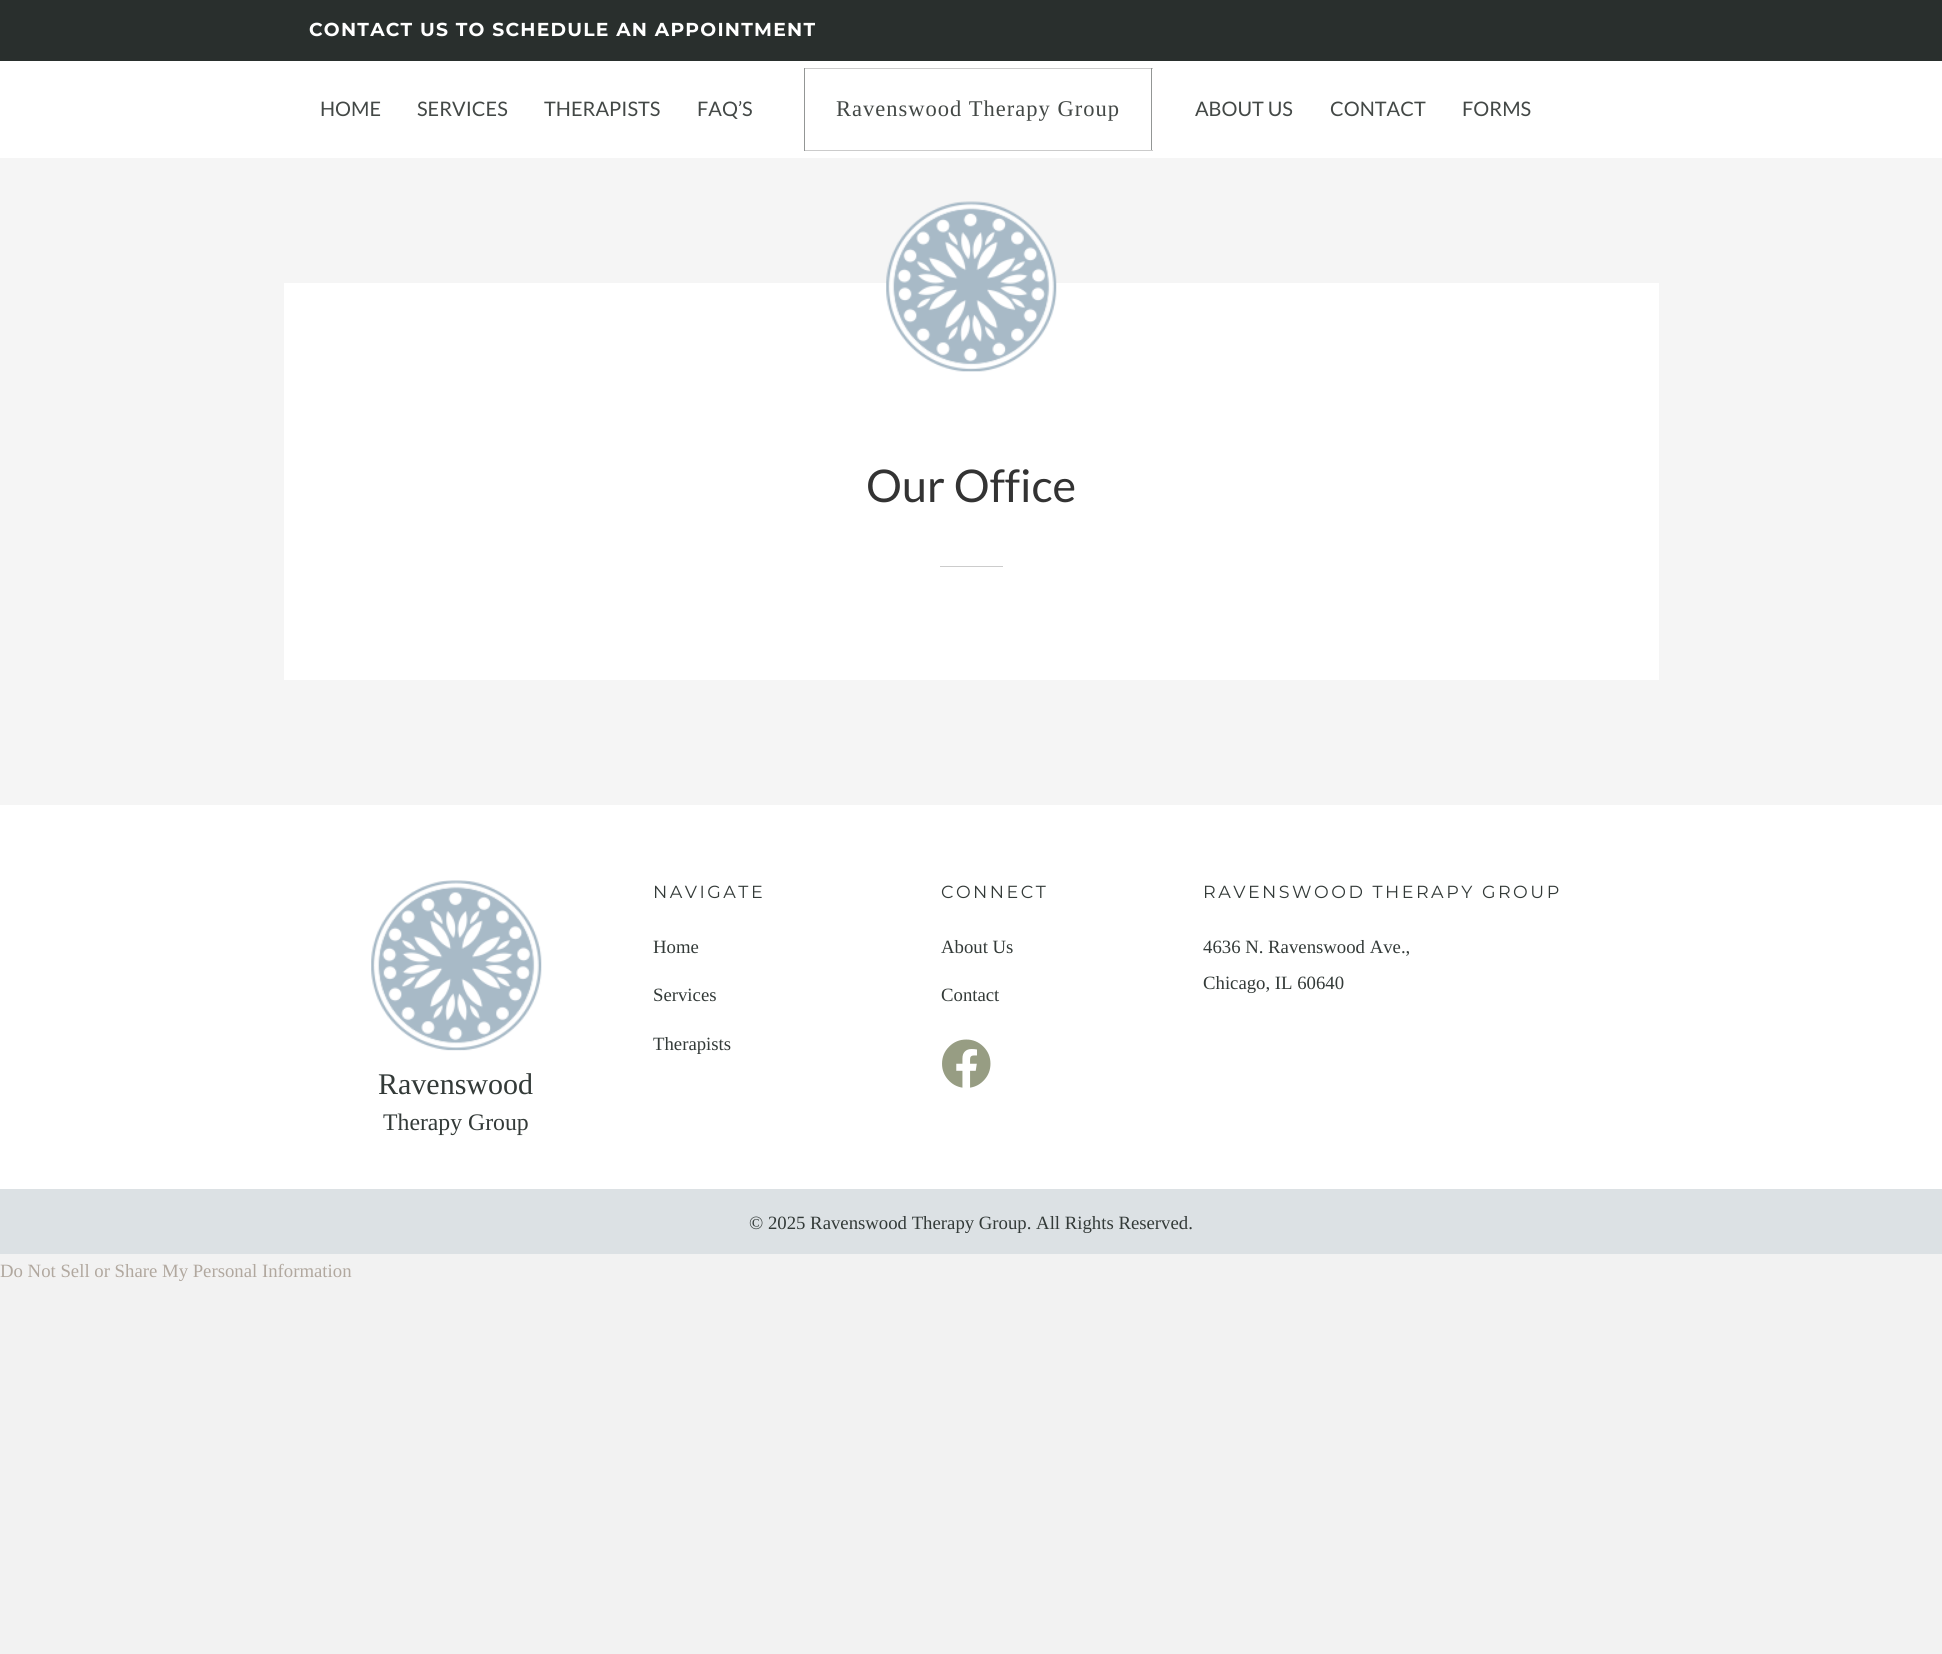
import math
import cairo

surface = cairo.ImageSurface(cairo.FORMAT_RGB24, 1942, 1654)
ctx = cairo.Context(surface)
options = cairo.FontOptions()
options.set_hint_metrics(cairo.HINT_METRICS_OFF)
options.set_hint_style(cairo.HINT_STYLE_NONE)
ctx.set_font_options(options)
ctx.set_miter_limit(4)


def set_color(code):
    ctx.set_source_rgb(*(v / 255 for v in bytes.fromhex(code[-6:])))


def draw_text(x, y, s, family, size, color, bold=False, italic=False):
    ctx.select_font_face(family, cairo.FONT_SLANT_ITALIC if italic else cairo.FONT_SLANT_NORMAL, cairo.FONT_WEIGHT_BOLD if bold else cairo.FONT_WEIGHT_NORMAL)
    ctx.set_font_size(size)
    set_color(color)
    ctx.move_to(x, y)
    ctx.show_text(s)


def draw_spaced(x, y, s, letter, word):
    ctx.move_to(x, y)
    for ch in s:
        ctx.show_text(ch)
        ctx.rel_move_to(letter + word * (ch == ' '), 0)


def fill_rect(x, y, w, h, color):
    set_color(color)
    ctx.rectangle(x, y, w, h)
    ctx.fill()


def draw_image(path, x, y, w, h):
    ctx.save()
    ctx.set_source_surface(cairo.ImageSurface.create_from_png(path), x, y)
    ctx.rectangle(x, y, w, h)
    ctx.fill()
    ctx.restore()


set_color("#f2f2f2")
ctx.paint()
fill_rect(0, 0, 1942, 61, "#292f2d")
ctx.select_font_face("Montserrat", cairo.FONT_SLANT_NORMAL, cairo.FONT_WEIGHT_BOLD)
ctx.set_font_size(18.75)
set_color("#ffffff")
draw_spaced(309, 36, "CONTACT US TO SCHEDULE AN APPOINTMENT", 1.25, 0)
fill_rect(0, 61, 1942, 97, "#ffffff")
draw_text(320, 116, "HOME", "Lato", 20, "#434846")
draw_text(417, 116, "SERVICES", "Lato", 20, "#434846")
draw_text(544, 116, "THERAPISTS", "Lato", 20, "#434846")
draw_text(697, 116, "FAQ’S", "Lato", 20, "#434846")
fill_rect(804, 68, 349, 1, "#cbcbcb")
fill_rect(1151, 68, 1, 83, "#939695")
fill_rect(804, 150, 349, 1, "#cbcbcb")
fill_rect(804, 68, 1, 83, "#939695")
ctx.select_font_face("Liberation Serif")
ctx.set_font_size(22.5)
set_color("#434846")
draw_spaced(836, 116, "Ravenswood Therapy Group", 1, 0)
draw_text(1195, 116, "ABOUT US", "Lato", 20, "#434846")
draw_text(1330, 116, "CONTACT", "Lato", 20, "#434846")
draw_text(1462, 116, "FORMS", "Lato", 20, "#434846")
fill_rect(0, 158, 1942, 647, "#f5f5f5")
fill_rect(284, 283, 1375, 397, "#ffffff")
draw_image("assets/img1.png", 886, 201, 171, 171)
draw_text(866, 502, "Our Office", "Lato", 45, "#333333")
fill_rect(940, 566, 63, 1, "#cccccc")
fill_rect(0, 805, 1942, 384, "#ffffff")
ctx.select_font_face("Montserrat")
ctx.set_font_size(17.5)
set_color("#333a38")
draw_spaced(653, 898, "NAVIGATE", 2.5, 0)
draw_text(653, 953, "Home", "Liberation Serif", 18.75, "#333a38")
draw_text(653, 1001, "Services", "Liberation Serif", 18.75, "#333a38")
draw_text(653, 1050, "Therapists", "Liberation Serif", 18.75, "#333a38")
ctx.select_font_face("Montserrat")
ctx.set_font_size(17.5)
draw_spaced(941, 898, "CONNECT", 2.5, 0)
draw_text(941, 953, "About Us", "Liberation Serif", 18.75, "#333a38")
draw_text(941, 1001, "Contact", "Liberation Serif", 18.75, "#333a38")
draw_image("assets/img2.png", 942, 1039, 49, 49)
ctx.select_font_face("Montserrat")
ctx.set_font_size(17.5)
draw_spaced(1203, 898, "RAVENSWOOD THERAPY GROUP", 2.5, 0)
draw_text(1203, 953, "4636 N. Ravenswood Ave.,", "Liberation Serif", 18.75, "#333a38")
draw_text(1203, 989, "Chicago, IL 60640", "Liberation Serif", 18.75, "#333a38")
draw_image("assets/img3.png", 371, 880, 171, 171)
draw_text(378, 1094, "Ravenswood", "Liberation Serif", 30, "#333a38")
draw_text(383, 1130, "Therapy Group", "Liberation Serif", 23.75, "#333a38")
fill_rect(0, 1189, 1942, 65, "#dce1e4")
draw_text(749, 1229, "© 2025 Ravenswood Therapy Group. All Rights Reserved.", "Liberation Serif", 18.75, "#333a38")
draw_text(0, 1277, "Do Not Sell or Share My Personal Information", "Liberation Serif", 18.75, "#b1a89f")
surface.write_to_png("output.png")
